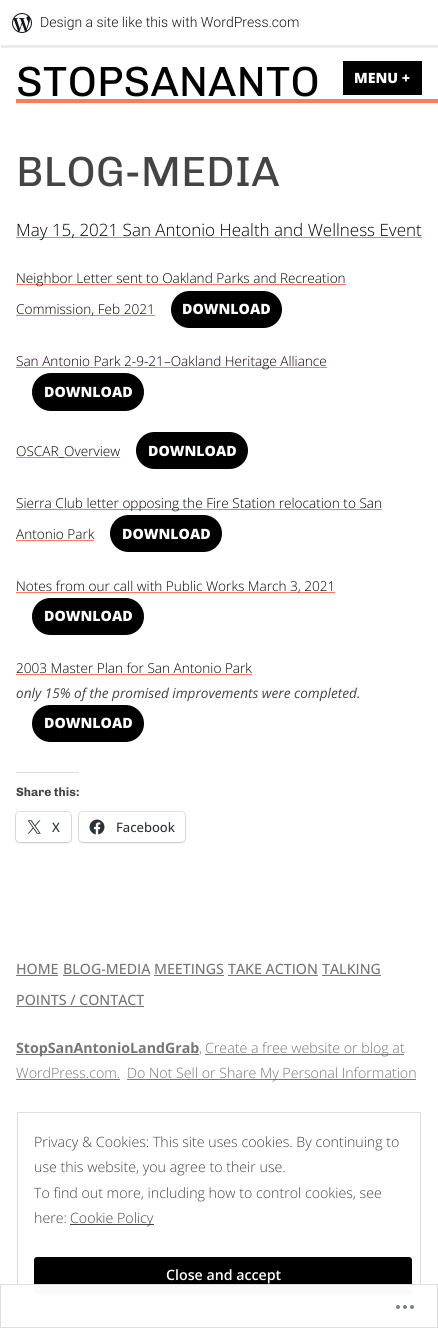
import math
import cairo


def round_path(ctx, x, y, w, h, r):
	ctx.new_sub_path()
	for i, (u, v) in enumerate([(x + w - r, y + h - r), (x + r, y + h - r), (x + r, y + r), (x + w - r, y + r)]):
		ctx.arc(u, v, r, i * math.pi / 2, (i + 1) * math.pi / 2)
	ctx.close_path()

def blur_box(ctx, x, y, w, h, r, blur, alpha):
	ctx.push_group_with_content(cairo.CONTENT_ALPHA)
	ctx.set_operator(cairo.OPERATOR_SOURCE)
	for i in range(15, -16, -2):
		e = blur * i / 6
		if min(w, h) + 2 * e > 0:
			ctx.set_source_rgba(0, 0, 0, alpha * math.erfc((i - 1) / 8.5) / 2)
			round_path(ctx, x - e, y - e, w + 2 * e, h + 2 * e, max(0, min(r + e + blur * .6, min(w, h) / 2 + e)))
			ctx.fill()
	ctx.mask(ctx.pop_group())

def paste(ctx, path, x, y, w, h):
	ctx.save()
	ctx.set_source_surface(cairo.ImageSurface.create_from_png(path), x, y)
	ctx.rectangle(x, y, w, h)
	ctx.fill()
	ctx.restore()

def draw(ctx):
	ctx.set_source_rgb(1, 1, 1)
	ctx.paint()
	ctx.set_source_rgba(0, 0, 0, 0.08)
	ctx.new_path()
	ctx.move_to(1, 45)
	ctx.line_to(1, 48)
	ctx.line_to(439, 48)
	ctx.line_to(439, 3)
	ctx.line_to(438, 3)
	ctx.line_to(438, 45)
	ctx.close_path()
	ctx.fill()
	paste(ctx, 'media/1.png', 12, 13, 20, 20)
	ctx.select_font_face('Roboto Light')
	ctx.set_font_size(14)
	ctx.set_source_rgb(0.09, 0.09, 0.09)
	ctx.move_to(40, 27)
	ctx.show_text('Design a site like this with WordPress.com')
	ctx.select_font_face('Chivo')
	ctx.set_font_size(42.25)
	ctx.set_source_rgb(0, 0, 0)
	ctx.move_to(16, 96)
	ctx.show_text('STOPSANANTO')
	ctx.set_source_rgb(1, 0.478, 0.361)
	ctx.rectangle(16, 99, 422, 4)
	ctx.fill()
	ctx.set_source_rgb(0, 0, 0)
	ctx.rectangle(343, 61, 79, 34)
	ctx.fill()
	ctx.select_font_face('Open Sans ExtraBold')
	ctx.set_font_size(14.2)
	ctx.set_source_rgb(1, 1, 1)
	ctx.move_to(354, 83)
	ctx.show_text('MENU +')
	ctx.select_font_face('Chivo')
	ctx.set_font_size(42.25)
	ctx.set_source_rgb(0.267, 0.267, 0.267)
	ctx.move_to(16, 186)
	ctx.show_text('BLOG-MEDIA')
	ctx.set_source_rgb(1, 0.478, 0.361)
	ctx.rectangle(16, 237, 406, 1)
	ctx.fill()
	ctx.select_font_face('Open Sans Light')
	ctx.set_font_size(17)
	ctx.set_source_rgb(0, 0, 0)
	ctx.move_to(16, 236)
	ctx.show_text('May 15, 2021 San Antonio Health and Wellness Event')
	ctx.set_source_rgb(1, 0.478, 0.361)
	ctx.rectangle(16, 284, 330, 1)
	ctx.fill()
	ctx.set_font_size(13.6)
	ctx.set_source_rgb(0, 0, 0)
	ctx.move_to(16, 283)
	ctx.show_text('Neighbor Letter sent to Oakland Parks and Recreation')
	ctx.set_source_rgb(1, 0.478, 0.361)
	ctx.rectangle(16, 315, 139, 1)
	ctx.fill()
	ctx.set_source_rgb(0, 0, 0)
	ctx.move_to(16, 314)
	ctx.show_text('Commission, Feb 2021')
	round_path(ctx, 171, 291, 111, 37, 18.5)
	ctx.fill()
	ctx.select_font_face('Open Sans ExtraBold')
	ctx.set_font_size(14.2)
	ctx.set_source_rgb(1, 1, 1)
	ctx.move_to(182, 314)
	ctx.show_text('DOWNLOAD')
	ctx.set_source_rgb(1, 0.478, 0.361)
	ctx.rectangle(16, 367, 311, 1)
	ctx.fill()
	ctx.select_font_face('Open Sans Light')
	ctx.set_font_size(13.6)
	ctx.set_source_rgb(0, 0, 0)
	ctx.move_to(16, 366)
	ctx.show_text('San Antonio Park 2-9-21–Oakland Heritage Alliance')
	round_path(ctx, 32, 373, 112, 38, 19)
	ctx.fill()
	ctx.select_font_face('Open Sans ExtraBold')
	ctx.set_font_size(14.2)
	ctx.set_source_rgb(1, 1, 1)
	ctx.move_to(44, 397)
	ctx.show_text('DOWNLOAD')
	ctx.set_source_rgb(1, 0.478, 0.361)
	ctx.rectangle(16, 457, 104, 1)
	ctx.fill()
	ctx.select_font_face('Open Sans Light')
	ctx.set_font_size(13.6)
	ctx.set_source_rgb(0, 0, 0)
	ctx.move_to(16, 456)
	ctx.show_text('OSCAR_Overview')
	round_path(ctx, 136, 432, 112, 37, 18.5)
	ctx.fill()
	ctx.select_font_face('Open Sans ExtraBold')
	ctx.set_font_size(14.2)
	ctx.set_source_rgb(1, 1, 1)
	ctx.move_to(148, 456)
	ctx.show_text('DOWNLOAD')
	ctx.set_source_rgb(1, 0.478, 0.361)
	ctx.rectangle(16, 509, 366, 1)
	ctx.fill()
	ctx.select_font_face('Open Sans Light')
	ctx.set_font_size(13.6)
	ctx.set_source_rgb(0, 0, 0)
	ctx.move_to(16, 508)
	ctx.show_text('Sierra Club letter opposing the Fire Station relocation to San')
	ctx.move_to(16, 539)
	ctx.show_text('Antonio Park')
	ctx.set_source_rgb(1, 0.478, 0.361)
	ctx.rectangle(16, 540, 78, 1)
	ctx.fill()
	ctx.set_source_rgb(0, 0, 0)
	round_path(ctx, 110, 515, 112, 37, 18.5)
	ctx.fill()
	ctx.select_font_face('Open Sans ExtraBold')
	ctx.set_font_size(14.2)
	ctx.set_source_rgb(1, 1, 1)
	ctx.move_to(122, 539)
	ctx.show_text('DOWNLOAD')
	ctx.set_source_rgb(1, 0.478, 0.361)
	ctx.rectangle(16, 592, 319, 1)
	ctx.fill()
	ctx.select_font_face('Open Sans Light')
	ctx.set_font_size(13.6)
	ctx.set_source_rgb(0, 0, 0)
	ctx.move_to(16, 591)
	ctx.show_text('Notes from our call with Public Works March 3, 2021')
	round_path(ctx, 32, 598, 112, 37, 18.5)
	ctx.fill()
	ctx.select_font_face('Open Sans ExtraBold')
	ctx.set_font_size(14.2)
	ctx.set_source_rgb(1, 1, 1)
	ctx.move_to(44, 621)
	ctx.show_text('DOWNLOAD')
	ctx.select_font_face('Open Sans Light')
	ctx.set_font_size(13.6)
	ctx.set_source_rgb(0, 0, 0)
	ctx.move_to(16, 673)
	ctx.show_text('2003 Master Plan for San Antonio Park')
	ctx.set_source_rgb(1, 0.478, 0.361)
	ctx.rectangle(16, 674, 236, 1)
	ctx.fill()
	ctx.select_font_face('Open Sans', cairo.FONT_SLANT_ITALIC)
	ctx.set_source_rgb(0.267, 0.267, 0.267)
	ctx.move_to(16, 698)
	ctx.show_text('only 15% of the promised improvements were completed.')
	ctx.set_source_rgb(0, 0, 0)
	round_path(ctx, 32, 705, 112, 37, 18.5)
	ctx.fill()
	ctx.select_font_face('Open Sans ExtraBold')
	ctx.set_font_size(14.2)
	ctx.set_source_rgb(1, 1, 1)
	ctx.move_to(44, 728)
	ctx.show_text('DOWNLOAD')
	ctx.set_source_rgb(0.863, 0.863, 0.871)
	ctx.rectangle(16, 772, 63, 1)
	ctx.fill()
	ctx.select_font_face('Chivo', cairo.FONT_SLANT_NORMAL, cairo.FONT_WEIGHT_BOLD)
	ctx.set_font_size(12)
	ctx.set_source_rgb(0.267, 0.267, 0.267)
	ctx.move_to(16, 796)
	ctx.show_text('Share this:')
	round_path(ctx, 15.5, 811.5, 56, 31, 4.5)
	ctx.set_source_rgb(0.878, 0.878, 0.878)
	ctx.set_line_width(1)
	ctx.stroke()
	ctx.set_source_rgb(0, 0, 0)
	blur_box(ctx, 16, 813, 55, 30, 4, 1, 0.12)
	ctx.set_source_rgb(1, 1, 1)
	round_path(ctx, 16, 812, 55, 30, 4)
	ctx.fill()
	paste(ctx, 'media/2.png', 27, 820, 14, 14)
	ctx.select_font_face('Open Sans Medium')
	ctx.set_font_size(13)
	ctx.set_source_rgb(0.173, 0.2, 0.22)
	ctx.move_to(52, 832)
	ctx.show_text('X')
	round_path(ctx, 78.5, 811.5, 107, 31, 4.5)
	ctx.set_source_rgb(0.878, 0.878, 0.878)
	ctx.stroke()
	ctx.set_source_rgb(0, 0, 0)
	blur_box(ctx, 79, 813, 106, 30, 4, 1, 0.12)
	ctx.set_source_rgb(1, 1, 1)
	round_path(ctx, 79, 812, 106, 30, 4)
	ctx.fill()
	paste(ctx, 'media/3.png', 89, 819, 16, 16)
	ctx.set_source_rgb(0.173, 0.2, 0.22)
	ctx.move_to(116, 832)
	ctx.show_text('Facebook')
	ctx.set_font_size(14.2)
	ctx.set_source_rgb(0.463, 0.463, 0.463)
	ctx.move_to(16, 974)
	ctx.show_text('HOME')
	ctx.rectangle(16, 975, 42, 1)
	ctx.fill()
	ctx.move_to(63, 974)
	ctx.show_text('BLOG-MEDIA')
	ctx.rectangle(63, 975, 87, 1)
	ctx.fill()
	ctx.move_to(154, 974)
	ctx.show_text('MEETINGS')
	ctx.rectangle(154, 975, 70, 1)
	ctx.fill()
	ctx.move_to(228, 974)
	ctx.show_text('TAKE ACTION')
	ctx.rectangle(228, 975, 90, 1)
	ctx.fill()
	ctx.move_to(322, 974)
	ctx.show_text('TALKING')
	ctx.rectangle(322, 975, 59, 1)
	ctx.fill()
	ctx.move_to(16, 1005)
	ctx.show_text('POINTS / CONTACT')
	ctx.rectangle(16, 1006, 128, 1)
	ctx.fill()
	ctx.rectangle(16, 1054, 183, 1)
	ctx.fill()
	ctx.select_font_face('Open Sans', cairo.FONT_SLANT_NORMAL, cairo.FONT_WEIGHT_BOLD)
	ctx.move_to(16, 1053)
	ctx.show_text('StopSanAntonioLandGrab')
	ctx.select_font_face('Open Sans Light')
	ctx.move_to(199, 1053)
	ctx.show_text(',')
	ctx.rectangle(205, 1054, 199, 1)
	ctx.fill()
	ctx.move_to(205, 1053)
	ctx.show_text('Create a free website or blog at')
	ctx.move_to(16, 1078)
	ctx.show_text('WordPress.com.')
	ctx.rectangle(16, 1079, 104, 1)
	ctx.fill()
	ctx.rectangle(127, 1079, 289, 1)
	ctx.fill()
	ctx.move_to(127, 1078)
	ctx.show_text('Do Not Sell or Share My Personal Information')
	ctx.rectangle(17.5, 1112.5, 403, 198)
	ctx.set_source_rgb(0.867, 0.867, 0.867)
	ctx.stroke()
	ctx.set_source_rgb(0.267, 0.267, 0.267)
	for x, y, s in [
		(34, 1147, 'Privacy & Cookies: This site uses cookies. By continuing to'),
		(34, 1172, 'use this website, you agree to their use.'),
		(34, 1198, 'To find out more, including how to control cookies, see'),
		(34, 1223, 'here:'),
	]:
		ctx.move_to(x, y)
		ctx.show_text(s)
	ctx.rectangle(70, 1224, 84, 1)
	ctx.fill()
	ctx.move_to(70, 1223)
	ctx.show_text('Cookie Policy')
	ctx.set_source_rgb(0, 0, 0)
	round_path(ctx, 34, 1257, 378, 37, 3)
	ctx.fill()
	ctx.select_font_face('Open Sans SemiBold')
	ctx.set_source_rgb(1, 1, 1)
	ctx.move_to(166, 1280)
	ctx.show_text('Close and accept')
	ctx.set_source_rgba(1, 1, 1, 0.98)
	ctx.rectangle(17, 1284, 404, 27)
	ctx.fill()
	ctx.rectangle(0.5, 1284.5, 437, 43)
	ctx.set_source_rgba(0.863, 0.863, 0.871, 0.98)
	ctx.stroke()
	paste(ctx, 'media/4.png', 396, 1305, 18, 4)


surface = cairo.ImageSurface(cairo.FORMAT_RGB24, 438, 1328)
ctx = cairo.Context(surface)
options = cairo.FontOptions()
options.set_hint_metrics(cairo.HINT_METRICS_OFF)
options.set_hint_style(cairo.HINT_STYLE_NONE)
ctx.set_font_options(options)
ctx.set_miter_limit(4)
draw(ctx)
surface.write_to_png('image.png')
